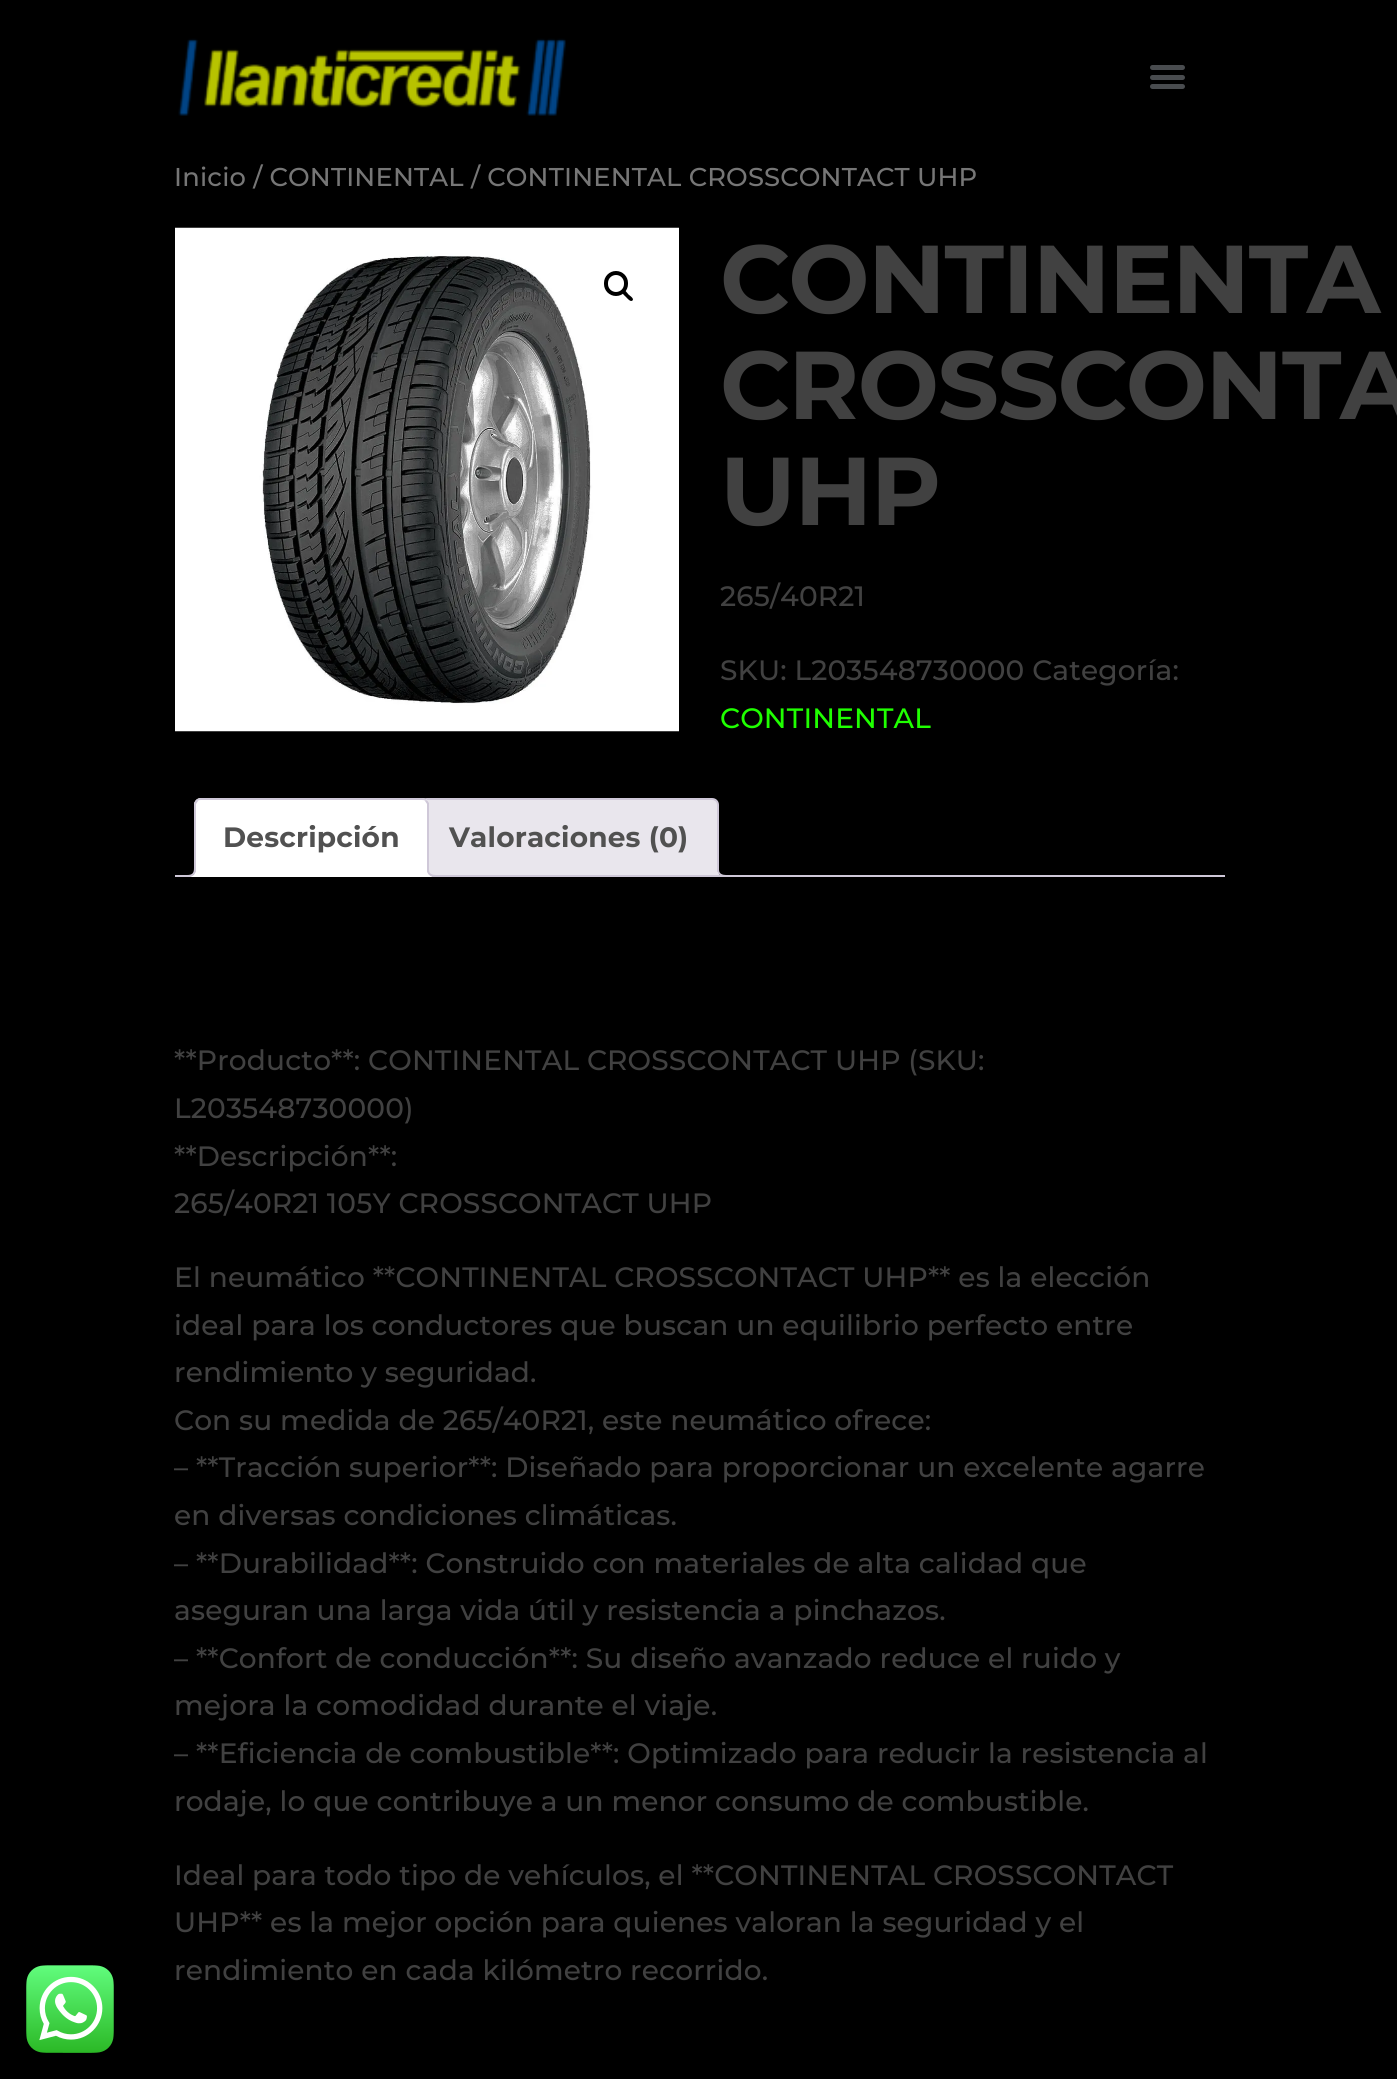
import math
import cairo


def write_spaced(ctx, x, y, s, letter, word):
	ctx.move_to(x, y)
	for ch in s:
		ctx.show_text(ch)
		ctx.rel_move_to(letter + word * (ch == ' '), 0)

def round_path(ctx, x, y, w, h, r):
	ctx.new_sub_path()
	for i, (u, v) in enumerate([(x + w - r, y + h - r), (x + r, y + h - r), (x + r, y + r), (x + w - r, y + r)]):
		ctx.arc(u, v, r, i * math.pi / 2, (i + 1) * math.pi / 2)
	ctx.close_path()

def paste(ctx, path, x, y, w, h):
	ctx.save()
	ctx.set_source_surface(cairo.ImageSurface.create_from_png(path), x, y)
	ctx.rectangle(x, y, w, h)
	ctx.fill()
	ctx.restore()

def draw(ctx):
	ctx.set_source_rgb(0, 0, 0)
	ctx.paint()
	paste(ctx, 'media/1.png', 178, 38, 388, 78)
	ctx.set_source_rgb(0.286, 0.298, 0.31)
	round_path(ctx, 1150, 75, 35, 5, 2.5)
	ctx.fill()
	round_path(ctx, 1150, 65, 35, 5, 2.5)
	ctx.fill()
	round_path(ctx, 1150, 84, 35, 5, 2.5)
	ctx.fill()
	ctx.select_font_face('Montserrat Medium')
	ctx.set_font_size(25.75)
	ctx.set_source_rgb(0.463, 0.463, 0.463)
	write_spaced(ctx, 174, 186, 'Inicio / CONTINENTAL / CONTINENTAL CROSSCONTACT UHP', 0.18, 0)
	paste(ctx, 'media/2.png', 175, 227, 504, 505)
	round_path(ctx, 606, 273, 20, 21, 10)
	ctx.set_source_rgb(0, 0, 0)
	ctx.set_line_width(4)
	ctx.stroke()
	ctx.new_path()
	ctx.move_to(622.5, 290.5)
	ctx.curve_to(624.5, 288.5, 627.5, 293.5, 628.5, 294.5)
	ctx.curve_to(629.5, 295.5, 634.5, 298.5, 632.5, 300.5)
	ctx.curve_to(630.5, 302.5, 627, 298, 626, 297)
	ctx.curve_to(625, 296, 620.5, 292.5, 622.5, 290.5)
	ctx.close_path()
	ctx.fill()
	ctx.select_font_face('Montserrat', cairo.FONT_SLANT_NORMAL, cairo.FONT_WEIGHT_BOLD)
	ctx.set_font_size(96.25)
	ctx.set_source_rgb(0.255, 0.255, 0.255)
	for x, y, s in [
		(720, 313, 'CONTINENTA'),
		(720, 419, 'CROSSCONTA'),
		(720, 525, 'UHP'),
	]:
		write_spaced(ctx, x, y, s, -1.4, 0)
	ctx.select_font_face('Montserrat Medium')
	ctx.set_font_size(28)
	write_spaced(ctx, 720, 606, '265/40R21', 0.18, 0)
	write_spaced(ctx, 720, 680, 'SKU: L203548730000 Categoría:', 0.18, 0)
	ctx.set_source_rgb(0.122, 1, 0)
	write_spaced(ctx, 720, 728, 'CONTINENTAL', 0.18, 0)
	ctx.set_source_rgb(0.914, 0.902, 0.929)
	ctx.new_path()
	ctx.move_to(427, 799)
	ctx.line_to(712, 799)
	ctx.curve_to(715.5, 799, 718, 801.5, 718, 805)
	ctx.line_to(718, 876)
	ctx.line_to(421, 876)
	ctx.line_to(421, 805)
	ctx.curve_to(421, 801.5, 423.5, 799, 427, 799)
	ctx.close_path()
	ctx.fill_preserve()
	ctx.set_source_rgb(0.812, 0.784, 0.847)
	ctx.set_line_width(2)
	ctx.stroke()
	ctx.save()
	ctx.rectangle(175, 798, 1050, 79)
	ctx.clip()
	ctx.set_source_rgb(0.914, 0.902, 0.929)
	ctx.new_path()
	ctx.move_to(714, 872)
	ctx.curve_to(714, 878, 717.5, 880, 723, 880)
	ctx.line_to(723, 876.5)
	ctx.curve_to(720.5, 876, 718.5, 874.5, 718, 872)
	ctx.close_path()
	ctx.fill()
	ctx.restore()
	ctx.set_fill_rule(cairo.FILL_RULE_EVEN_ODD)
	ctx.new_path()
	ctx.move_to(717.5, 868)
	ctx.line_to(726, 868)
	ctx.line_to(726, 877)
	ctx.curve_to(722, 877, 717.5, 875, 717.5, 870)
	ctx.close_path()
	ctx.move_to(719, 868)
	ctx.line_to(726, 868)
	ctx.line_to(726, 875)
	ctx.curve_to(723, 875, 719, 874, 719, 870)
	ctx.close_path()
	ctx.fill()
	ctx.rectangle(175, 875, 1050, 2)
	ctx.fill()
	ctx.set_source_rgb(1, 1, 1)
	ctx.new_path()
	ctx.move_to(201, 798)
	ctx.line_to(422, 798)
	ctx.curve_to(426, 798, 429, 801, 429, 805)
	ctx.line_to(429, 877)
	ctx.line_to(194, 877)
	ctx.line_to(194, 805)
	ctx.curve_to(194, 801, 197, 798, 201, 798)
	ctx.close_path()
	ctx.fill()
	ctx.set_source_rgb(0.812, 0.784, 0.847)
	ctx.set_fill_rule(cairo.FILL_RULE_WINDING)
	ctx.new_path()
	ctx.move_to(201, 798)
	ctx.curve_to(199, 798, 197, 799, 196, 800)
	ctx.line_to(198, 801)
	ctx.curve_to(198, 800, 200, 800, 201, 800)
	ctx.line_to(422, 800)
	ctx.curve_to(423, 800, 425, 800, 425, 801)
	ctx.line_to(427, 800)
	ctx.curve_to(426, 799, 424, 798, 422, 798)
	ctx.close_path()
	ctx.fill()
	ctx.new_path()
	ctx.move_to(427, 800)
	ctx.line_to(429, 803)
	ctx.line_to(429, 877)
	ctx.line_to(427, 875)
	ctx.line_to(427, 804)
	ctx.line_to(425, 801)
	ctx.close_path()
	ctx.fill()
	ctx.set_source_rgb(1, 1, 1)
	ctx.new_path()
	ctx.move_to(429, 877)
	ctx.line_to(427, 875)
	ctx.line_to(196, 875)
	ctx.line_to(194, 877)
	ctx.close_path()
	ctx.fill()
	ctx.set_source_rgb(0.812, 0.784, 0.847)
	ctx.new_path()
	ctx.move_to(194, 877)
	ctx.line_to(194, 803)
	ctx.line_to(196, 800)
	ctx.line_to(198, 801)
	ctx.line_to(196, 804)
	ctx.line_to(196, 875)
	ctx.close_path()
	ctx.fill()
	ctx.select_font_face('Montserrat', cairo.FONT_SLANT_NORMAL, cairo.FONT_WEIGHT_BOLD)
	ctx.set_source_rgb(0.318, 0.318, 0.318)
	write_spaced(ctx, 223, 847, 'Descripción', 0.18, 0)
	ctx.save()
	ctx.rectangle(175, 798, 1050, 79)
	ctx.clip()
	ctx.set_source_rgb(1, 1, 1)
	ctx.new_path()
	ctx.move_to(191, 876.5)
	ctx.line_to(191, 880)
	ctx.curve_to(196.5, 880, 200, 878, 200, 872)
	ctx.line_to(195.5, 872)
	ctx.curve_to(195, 874, 193, 876, 191, 876.5)
	ctx.close_path()
	ctx.fill()
	ctx.restore()
	ctx.set_source_rgb(0.812, 0.784, 0.847)
	ctx.set_fill_rule(cairo.FILL_RULE_EVEN_ODD)
	ctx.new_path()
	ctx.move_to(187, 868)
	ctx.line_to(196, 868)
	ctx.curve_to(196, 874, 193.5, 877, 187, 877)
	ctx.close_path()
	ctx.move_to(187, 868)
	ctx.line_to(194, 868)
	ctx.curve_to(194, 873, 192.5, 875, 187, 875)
	ctx.close_path()
	ctx.fill()
	ctx.save()
	ctx.set_fill_rule(cairo.FILL_RULE_WINDING)
	ctx.rectangle(175, 798, 1050, 79)
	ctx.clip()
	ctx.set_source_rgb(1, 1, 1)
	ctx.new_path()
	ctx.move_to(424, 872)
	ctx.curve_to(424, 877, 427, 880, 432, 880)
	ctx.line_to(432, 876.5)
	ctx.curve_to(430, 876, 428, 874, 427.5, 872)
	ctx.close_path()
	ctx.fill()
	ctx.restore()
	ctx.new_path()
	ctx.move_to(427, 868)
	ctx.line_to(436, 868)
	ctx.line_to(436, 877)
	ctx.curve_to(431.5, 877, 427, 875, 427, 870)
	ctx.close_path()
	ctx.move_to(429, 868)
	ctx.line_to(436, 868)
	ctx.line_to(436, 875)
	ctx.curve_to(432.5, 875, 429, 874, 429, 870)
	ctx.close_path()
	ctx.fill()
	ctx.set_source_rgb(0.318, 0.318, 0.318)
	write_spaced(ctx, 449, 847, 'Valoraciones (0)', 0.18, 0)
	ctx.select_font_face('Montserrat Medium')
	ctx.set_source_rgb(0.255, 0.255, 0.255)
	for x, y, s in [
		(174, 1070, '**Producto**: CONTINENTAL CROSSCONTACT UHP (SKU:'),
		(174, 1118, 'L203548730000)'),
		(174, 1166, '**Descripción**:'),
		(174, 1213, '265/40R21 105Y CROSSCONTACT UHP'),
		(174, 1287, 'El neumático **CONTINENTAL CROSSCONTACT UHP** es la elección'),
		(174, 1335, 'ideal para los conductores que buscan un equilibrio perfecto entre'),
		(174, 1382, 'rendimiento y seguridad.'),
		(174, 1430, 'Con su medida de 265/40R21, este neumático ofrece:'),
		(174, 1477, '– **Tracción superior**: Diseñado para proporcionar un excelente agarre'),
		(174, 1525, 'en diversas condiciones climáticas.'),
		(174, 1573, '– **Durabilidad**: Construido con materiales de alta calidad que'),
		(174, 1620, 'aseguran una larga vida útil y resistencia a pinchazos.'),
		(174, 1668, '– **Confort de conducción**: Su diseño avanzado reduce el ruido y'),
		(174, 1715, 'mejora la comodidad durante el viaje.'),
		(174, 1763, '– **Eficiencia de combustible**: Optimizado para reducir la resistencia al'),
		(174, 1811, 'rodaje, lo que contribuye a un menor consumo de combustible.'),
		(174, 1885, 'Ideal para todo tipo de vehículos, el **CONTINENTAL CROSSCONTACT'),
		(174, 1932, 'UHP** es la mejor opción para quienes valoran la seguridad y el'),
		(174, 1980, 'rendimiento en cada kilómetro recorrido.'),
	]:
		write_spaced(ctx, x, y, s, 0.18, 0)
	paste(ctx, 'media/3.png', 26, 1965, 88, 88)


surface = cairo.ImageSurface(cairo.FORMAT_RGB24, 1397, 2079)
ctx = cairo.Context(surface)
options = cairo.FontOptions()
options.set_hint_metrics(cairo.HINT_METRICS_OFF)
options.set_hint_style(cairo.HINT_STYLE_NONE)
ctx.set_font_options(options)
ctx.set_miter_limit(4)
draw(ctx)
surface.write_to_png('image.png')
